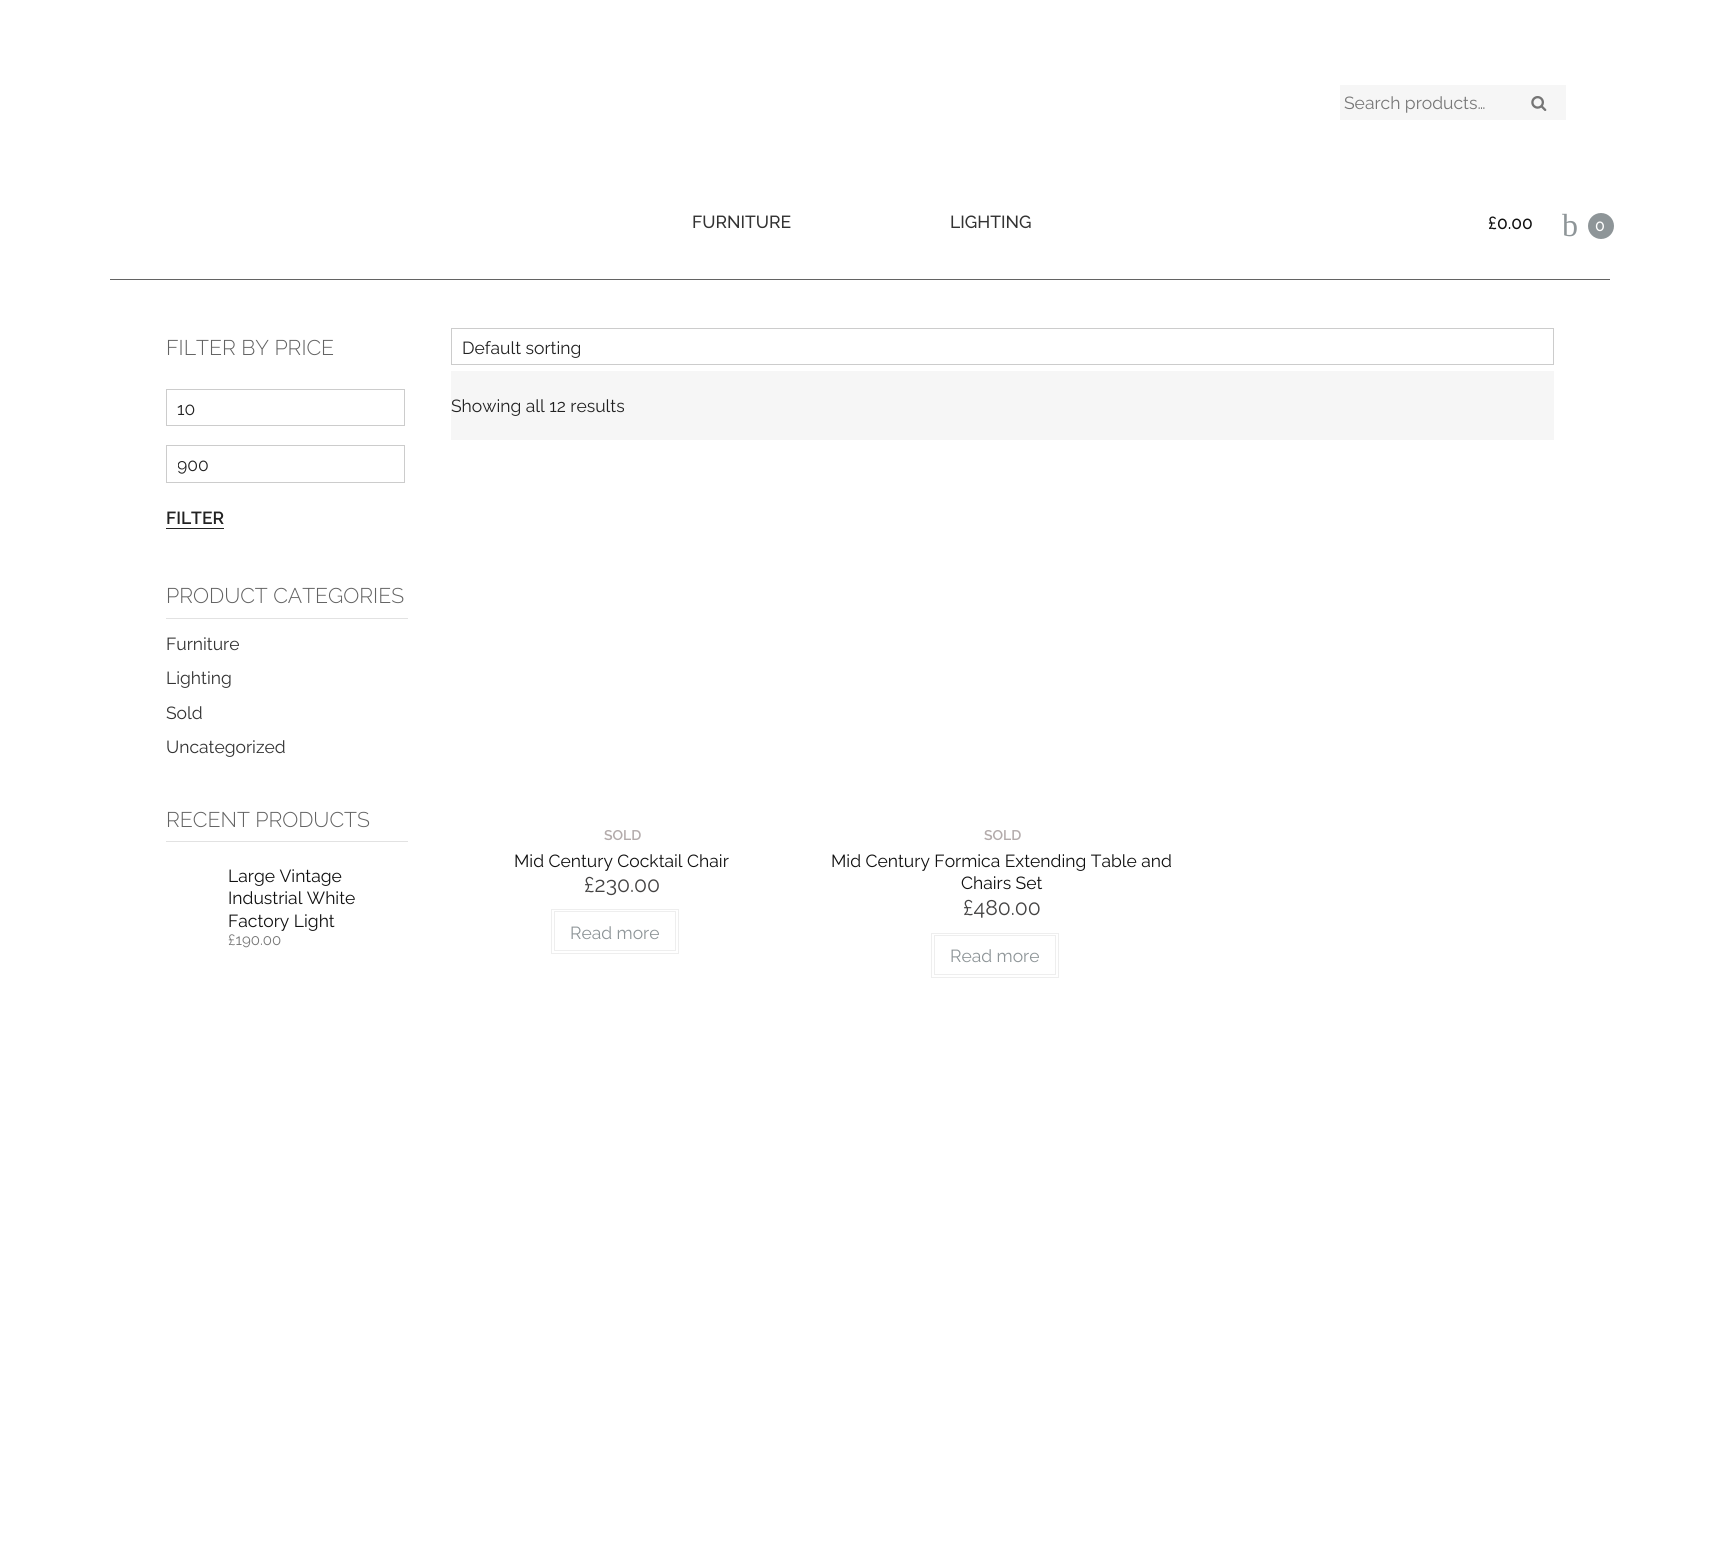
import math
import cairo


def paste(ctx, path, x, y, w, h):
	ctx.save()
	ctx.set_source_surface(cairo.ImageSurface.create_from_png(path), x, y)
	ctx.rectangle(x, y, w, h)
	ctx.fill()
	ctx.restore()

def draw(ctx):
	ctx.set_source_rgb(1, 1, 1)
	ctx.paint()
	ctx.set_source_rgb(0.961, 0.961, 0.961)
	ctx.rectangle(1340, 85, 226, 35)
	ctx.fill()
	ctx.select_font_face('Raleway')
	ctx.set_font_size(17.5)
	ctx.set_source_rgb(0.467, 0.467, 0.467)
	ctx.move_to(1344, 109)
	ctx.show_text('Search products…')
	paste(ctx, 'media/1.png', 1531, 96, 16, 15)
	ctx.set_source_rgb(0.388, 0.388, 0.388)
	ctx.rectangle(110, 279, 1500, 1)
	ctx.fill()
	ctx.select_font_face('Raleway Medium')
	ctx.set_source_rgb(0.2, 0.2, 0.2)
	ctx.move_to(692, 228)
	ctx.show_text('FURNITURE')
	ctx.move_to(950, 228)
	ctx.show_text('LIGHTING')
	ctx.set_source_rgb(0.067, 0.067, 0.067)
	ctx.move_to(1488, 229)
	ctx.show_text('£0.00')
	ctx.select_font_face('Liberation Serif')
	ctx.set_font_size(32)
	ctx.set_source_rgb(0.557, 0.584, 0.596)
	ctx.move_to(1562, 236)
	ctx.show_text('b')
	ctx.new_path()
	ctx.arc(1601, 226, 13, 0, 2 * math.pi)
	ctx.fill()
	ctx.select_font_face('Raleway Medium')
	ctx.set_font_size(16)
	ctx.set_source_rgb(1, 1, 1)
	ctx.move_to(1595, 231)
	ctx.show_text('0')
	ctx.select_font_face('Raleway Light')
	ctx.set_font_size(21.25)
	ctx.set_source_rgb(0.388, 0.388, 0.388)
	ctx.move_to(166, 355)
	ctx.show_text('FILTER BY PRICE')
	ctx.rectangle(166.5, 389.5, 238, 36)
	ctx.set_source_rgb(0.8, 0.8, 0.8)
	ctx.set_line_width(1)
	ctx.stroke()
	ctx.select_font_face('Raleway')
	ctx.set_font_size(17.5)
	ctx.set_source_rgb(0.133, 0.133, 0.133)
	ctx.move_to(177, 415)
	ctx.show_text('10')
	ctx.rectangle(166.5, 445.5, 238, 37)
	ctx.set_source_rgb(0.8, 0.8, 0.8)
	ctx.stroke()
	ctx.save()
	ctx.rectangle(178, 453, 216, 25)
	ctx.clip()
	ctx.set_source_rgb(0.133, 0.133, 0.133)
	ctx.move_to(177, 471)
	ctx.show_text('900')
	ctx.restore()
	ctx.set_source_rgb(0.133, 0.133, 0.133)
	ctx.rectangle(166, 528, 58, 1)
	ctx.fill()
	ctx.select_font_face('Raleway SemiBold')
	ctx.move_to(166, 524)
	ctx.show_text('FILTER')
	ctx.set_source_rgb(0.886, 0.886, 0.886)
	ctx.rectangle(166, 618, 242, 1)
	ctx.fill()
	ctx.select_font_face('Raleway Light')
	ctx.set_font_size(21.25)
	ctx.set_source_rgb(0.388, 0.388, 0.388)
	ctx.move_to(166, 603)
	ctx.show_text('PRODUCT CATEGORIES')
	ctx.select_font_face('Raleway')
	ctx.set_font_size(17.5)
	ctx.set_source_rgb(0.2, 0.2, 0.2)
	for x, y, s in [
		(166, 650, 'Furniture'),
		(166, 684, 'Lighting'),
		(166, 719, 'Sold'),
		(166, 753, 'Uncategorized'),
	]:
		ctx.move_to(x, y)
		ctx.show_text(s)
	ctx.set_source_rgb(0.886, 0.886, 0.886)
	ctx.rectangle(166, 841, 242, 1)
	ctx.fill()
	ctx.select_font_face('Raleway Light')
	ctx.set_font_size(21.25)
	ctx.set_source_rgb(0.388, 0.388, 0.388)
	ctx.move_to(166, 827)
	ctx.show_text('RECENT PRODUCTS')
	ctx.select_font_face('Raleway')
	ctx.set_font_size(17.5)
	ctx.set_source_rgb(0.067, 0.067, 0.067)
	for x, y, s in [
		(228, 882, 'Large Vintage'),
		(228, 904, 'Industrial White'),
		(228, 927, 'Factory Light'),
	]:
		ctx.move_to(x, y)
		ctx.show_text(s)
	ctx.set_font_size(15)
	ctx.set_source_rgb(0.467, 0.467, 0.467)
	ctx.move_to(228, 945)
	ctx.show_text('£190.00')
	ctx.rectangle(451.5, 328.5, 1102, 36)
	ctx.set_source_rgb(0.8, 0.8, 0.8)
	ctx.stroke()
	ctx.set_font_size(17.5)
	ctx.set_source_rgb(0.133, 0.133, 0.133)
	ctx.move_to(462, 354)
	ctx.show_text('Default sorting')
	ctx.set_source_rgb(0.961, 0.961, 0.961)
	ctx.rectangle(451, 371, 1103, 69)
	ctx.fill()
	ctx.set_source_rgb(0.133, 0.133, 0.133)
	ctx.move_to(451, 412)
	ctx.show_text('Showing all 12 results')
	ctx.select_font_face('Raleway SemiBold')
	ctx.set_font_size(14)
	ctx.set_source_rgb(0.702, 0.671, 0.671)
	ctx.move_to(604, 840)
	ctx.show_text('SOLD')
	ctx.select_font_face('Raleway')
	ctx.set_font_size(17.5)
	ctx.set_source_rgb(0.067, 0.067, 0.067)
	ctx.move_to(514, 867)
	ctx.show_text('Mid Century Cocktail Chair')
	ctx.set_font_size(21.25)
	ctx.set_source_rgb(0.267, 0.263, 0.263)
	ctx.move_to(584, 892)
	ctx.show_text('£230.00')
	ctx.rectangle(551.5, 909.5, 127, 44)
	ctx.set_source_rgb(0.933, 0.933, 0.933)
	ctx.stroke()
	ctx.rectangle(554.5, 911.5, 121, 39)
	ctx.stroke()
	ctx.set_font_size(17.5)
	ctx.set_source_rgb(0.557, 0.584, 0.596)
	ctx.move_to(570, 939)
	ctx.show_text('Read more')
	ctx.select_font_face('Raleway SemiBold')
	ctx.set_font_size(14)
	ctx.set_source_rgb(0.702, 0.671, 0.671)
	ctx.move_to(984, 840)
	ctx.show_text('SOLD')
	ctx.select_font_face('Raleway')
	ctx.set_font_size(17.5)
	ctx.set_source_rgb(0.067, 0.067, 0.067)
	ctx.move_to(831, 867)
	ctx.show_text('Mid Century Formica Extending Table and')
	ctx.move_to(961, 889)
	ctx.show_text('Chairs Set')
	ctx.set_font_size(21.25)
	ctx.set_source_rgb(0.267, 0.263, 0.263)
	ctx.move_to(963, 915)
	ctx.show_text('£480.00')
	ctx.rectangle(931.5, 933.5, 127, 44)
	ctx.set_source_rgb(0.933, 0.933, 0.933)
	ctx.stroke()
	ctx.rectangle(934.5, 935.5, 121, 39)
	ctx.stroke()
	ctx.set_font_size(17.5)
	ctx.set_source_rgb(0.557, 0.584, 0.596)
	ctx.move_to(950, 962)
	ctx.show_text('Read more')


surface = cairo.ImageSurface(cairo.FORMAT_RGB24, 1718, 1565)
ctx = cairo.Context(surface)
options = cairo.FontOptions()
options.set_hint_metrics(cairo.HINT_METRICS_OFF)
options.set_hint_style(cairo.HINT_STYLE_NONE)
ctx.set_font_options(options)
ctx.set_miter_limit(4)
draw(ctx)
surface.write_to_png('image.png')
